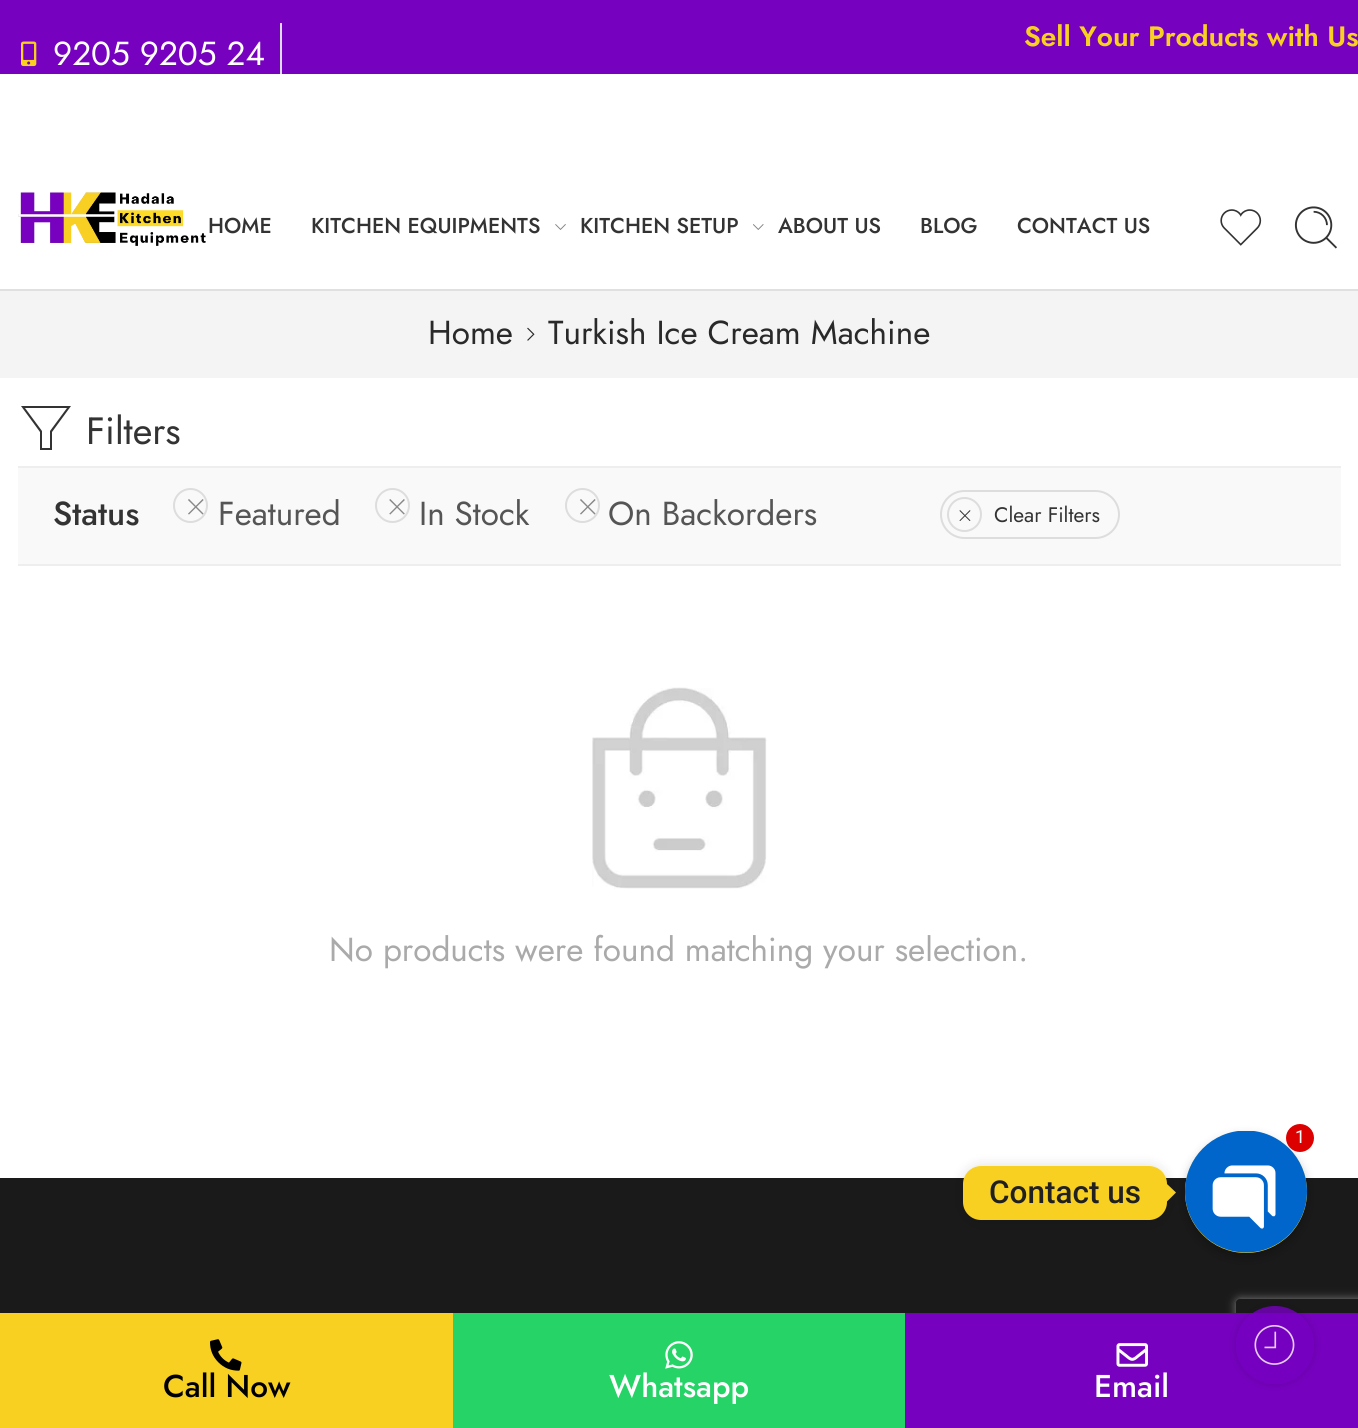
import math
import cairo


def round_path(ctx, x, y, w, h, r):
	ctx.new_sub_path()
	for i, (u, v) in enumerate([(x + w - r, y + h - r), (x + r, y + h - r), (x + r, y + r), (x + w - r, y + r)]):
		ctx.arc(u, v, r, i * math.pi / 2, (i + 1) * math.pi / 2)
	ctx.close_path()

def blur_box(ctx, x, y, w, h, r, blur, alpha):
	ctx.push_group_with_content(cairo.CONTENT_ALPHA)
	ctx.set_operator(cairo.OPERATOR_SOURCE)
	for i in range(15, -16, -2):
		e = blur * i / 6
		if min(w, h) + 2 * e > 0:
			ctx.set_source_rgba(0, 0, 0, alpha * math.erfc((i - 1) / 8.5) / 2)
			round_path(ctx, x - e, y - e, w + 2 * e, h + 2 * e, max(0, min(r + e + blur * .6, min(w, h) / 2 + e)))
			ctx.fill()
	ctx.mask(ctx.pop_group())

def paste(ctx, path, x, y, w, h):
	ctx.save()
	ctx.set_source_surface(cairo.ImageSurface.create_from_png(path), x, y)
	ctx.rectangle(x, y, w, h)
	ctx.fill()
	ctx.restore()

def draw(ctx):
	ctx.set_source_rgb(1, 1, 1)
	ctx.paint()
	ctx.set_source_rgb(0.463, 0.004, 0.749)
	ctx.rectangle(0, 0, 1358, 74)
	ctx.fill()
	ctx.select_font_face('Jost SemiBold')
	ctx.set_font_size(28)
	ctx.set_source_rgb(0.969, 0.816, 0.133)
	ctx.move_to(1024, 46)
	ctx.show_text('Sell Your Products with Us')
	paste(ctx, 'media/1.png', 21, 41, 16, 26)
	ctx.select_font_face('Jost')
	ctx.set_font_size(33.25)
	ctx.set_source_rgb(1, 1, 1)
	ctx.move_to(53, 65)
	ctx.show_text('9205 9205 24')
	ctx.set_source_rgb(0.867, 0.867, 0.867)
	ctx.rectangle(280, 23, 2, 51)
	ctx.fill()
	ctx.set_source_rgb(0.878, 0.878, 0.878)
	ctx.rectangle(0, 289, 1358, 2)
	ctx.fill()
	paste(ctx, 'media/2.png', 18, 192, 188, 54)
	ctx.select_font_face('Jost Medium')
	ctx.set_font_size(21.5)
	ctx.set_source_rgb(0.2, 0.2, 0.2)
	ctx.move_to(208, 233)
	ctx.show_text('HOME')
	ctx.move_to(311, 233)
	ctx.show_text('KITCHEN EQUIPMENTS')
	paste(ctx, 'media/3.png', 555, 224, 11, 6)
	ctx.move_to(580, 233)
	ctx.show_text('KITCHEN SETUP')
	paste(ctx, 'media/4.png', 753, 224, 11, 6)
	for x, y, s in [
		(778, 233, 'ABOUT US'),
		(920, 233, 'BLOG'),
		(1017, 233, 'CONTACT US'),
	]:
		ctx.move_to(x, y)
		ctx.show_text(s)
	paste(ctx, 'media/5.png', 1220, 209, 42, 37)
	paste(ctx, 'media/6.png', 1294, 206, 43, 43)
	ctx.set_source_rgb(0.957, 0.957, 0.957)
	ctx.rectangle(0, 291, 1358, 87)
	ctx.fill()
	ctx.select_font_face('Jost')
	ctx.set_font_size(33.25)
	ctx.set_source_rgb(0.161, 0.161, 0.161)
	ctx.move_to(428, 344)
	ctx.show_text('Home')
	paste(ctx, 'media/7.png', 527, 327, 8, 14)
	ctx.move_to(548, 344)
	ctx.show_text('Turkish Ice Cream Machine')
	ctx.set_source_rgb(0.2, 0.2, 0.2)
	ctx.new_path()
	ctx.move_to(52, 450)
	ctx.line_to(40, 450)
	ctx.line_to(40, 432)
	ctx.line_to(21, 406)
	ctx.line_to(71, 406)
	ctx.line_to(52, 432)
	ctx.close_path()
	ctx.move_to(42, 448)
	ctx.line_to(50, 448)
	ctx.line_to(50, 431)
	ctx.line_to(67, 408)
	ctx.line_to(25, 408)
	ctx.line_to(42, 431)
	ctx.close_path()
	ctx.fill()
	ctx.set_font_size(38)
	ctx.move_to(86, 444)
	ctx.show_text('Filters')
	ctx.set_source_rgb(0.976, 0.976, 0.976)
	ctx.rectangle(18, 468, 1323, 96)
	ctx.fill()
	ctx.set_source_rgb(0.933, 0.933, 0.933)
	ctx.rectangle(18, 466, 1323, 2)
	ctx.rectangle(18, 564, 1323, 2)
	ctx.fill()
	ctx.select_font_face('Jost Medium')
	ctx.set_font_size(33.25)
	ctx.set_source_rgb(0.2, 0.2, 0.2)
	ctx.move_to(53, 525)
	ctx.show_text('Status')
	ctx.new_path()
	ctx.arc(190.5, 505.5, 16.5, 0, 2 * math.pi)
	ctx.set_source_rgb(0.867, 0.867, 0.867)
	ctx.stroke()
	paste(ctx, 'media/8.png', 188, 499, 16, 16)
	ctx.select_font_face('Jost')
	ctx.set_source_rgb(0.333, 0.333, 0.333)
	ctx.move_to(218, 525)
	ctx.show_text('Featured')
	ctx.new_path()
	ctx.arc(392.5, 505.5, 16.5, 0, 2 * math.pi)
	ctx.set_source_rgb(0.867, 0.867, 0.867)
	ctx.stroke()
	paste(ctx, 'media/9.png', 389, 499, 16, 16)
	ctx.set_source_rgb(0.333, 0.333, 0.333)
	ctx.move_to(419, 525)
	ctx.show_text('In Stock')
	ctx.new_path()
	ctx.arc(582.5, 505.5, 16.5, 0, 2 * math.pi)
	ctx.set_source_rgb(0.867, 0.867, 0.867)
	ctx.stroke()
	paste(ctx, 'media/8.png', 580, 499, 16, 16)
	ctx.set_source_rgb(0.333, 0.333, 0.333)
	ctx.move_to(608, 525)
	ctx.show_text('On Backorders')
	round_path(ctx, 941, 491, 178, 47, 23.5)
	ctx.set_source_rgb(0.867, 0.867, 0.867)
	ctx.stroke()
	ctx.arc(964.5, 514.5, 16.5, 0, 2 * math.pi)
	ctx.stroke()
	paste(ctx, 'media/10.png', 959, 510, 12, 11)
	ctx.set_font_size(21)
	ctx.set_source_rgb(0.2, 0.2, 0.2)
	ctx.move_to(994, 522)
	ctx.show_text('Clear Filters')
	paste(ctx, 'media/11.png', 592, 687, 175, 202)
	ctx.set_font_size(33.25)
	ctx.set_source_rgb(0.667, 0.667, 0.667)
	ctx.move_to(329, 961)
	ctx.show_text('No products were found matching your selection.')
	ctx.set_source_rgb(0.102, 0.102, 0.102)
	ctx.rectangle(0, 1178, 1358, 135)
	ctx.fill()
	ctx.set_source_rgb(0.969, 0.816, 0.133)
	ctx.rectangle(0, 1313, 453, 115)
	ctx.fill()
	paste(ctx, 'media/12.png', 210, 1339, 32, 32)
	ctx.select_font_face('Jost Medium')
	ctx.set_font_size(31.5)
	ctx.set_source_rgb(0, 0, 0)
	ctx.move_to(163, 1397)
	ctx.show_text('Call Now')
	ctx.set_source_rgb(0.145, 0.827, 0.4)
	ctx.rectangle(453, 1313, 452, 115)
	ctx.fill()
	paste(ctx, 'media/13.png', 665, 1341, 28, 28)
	ctx.set_source_rgb(1, 1, 1)
	ctx.move_to(609, 1397)
	ctx.show_text('Whatsapp')
	ctx.save()
	ctx.set_fill_rule(cairo.FILL_RULE_EVEN_ODD)
	ctx.new_path()
	ctx.move_to(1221, 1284)
	ctx.line_to(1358, 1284)
	ctx.line_to(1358, 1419)
	ctx.line_to(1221, 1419)
	ctx.close_path()
	ctx.move_to(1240, 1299)
	ctx.line_to(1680, 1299)
	ctx.curve_to(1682, 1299, 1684, 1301, 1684, 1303)
	ctx.line_to(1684, 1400)
	ctx.curve_to(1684, 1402, 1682, 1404, 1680, 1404)
	ctx.line_to(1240, 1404)
	ctx.curve_to(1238, 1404, 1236, 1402, 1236, 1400)
	ctx.line_to(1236, 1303)
	ctx.curve_to(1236, 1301, 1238, 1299, 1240, 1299)
	ctx.close_path()
	ctx.clip()
	ctx.set_source_rgb(0.502, 0.502, 0.502)
	blur_box(ctx, 1236, 1299, 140, 105, 4, 4.5, 1)
	ctx.restore()
	ctx.set_source_rgb(0.463, 0.004, 0.749)
	ctx.rectangle(905, 1313, 453, 115)
	ctx.fill()
	paste(ctx, 'media/14.png', 1116, 1343, 32, 24)
	ctx.set_source_rgb(1, 1, 1)
	ctx.move_to(1094, 1397)
	ctx.show_text('Email')
	ctx.save()
	ctx.set_fill_rule(cairo.FILL_RULE_EVEN_ODD)
	ctx.new_path()
	ctx.move_to(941, 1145)
	ctx.line_to(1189, 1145)
	ctx.line_to(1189, 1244)
	ctx.line_to(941, 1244)
	ctx.close_path()
	ctx.move_to(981, 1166)
	ctx.line_to(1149, 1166)
	ctx.curve_to(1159, 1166, 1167, 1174, 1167, 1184)
	ctx.line_to(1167, 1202)
	ctx.curve_to(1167, 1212, 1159, 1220, 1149, 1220)
	ctx.line_to(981, 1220)
	ctx.curve_to(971, 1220, 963, 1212, 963, 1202)
	ctx.line_to(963, 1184)
	ctx.curve_to(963, 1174, 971, 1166, 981, 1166)
	ctx.close_path()
	ctx.clip()
	ctx.set_source_rgb(0, 0, 0)
	blur_box(ctx, 963, 1167, 204, 55, 18, 7, 0.15)
	ctx.restore()
	ctx.set_source_rgb(0.969, 0.816, 0.133)
	ctx.new_path()
	ctx.move_to(1167, 1201.5)
	ctx.line_to(1167, 1184)
	ctx.line_to(1176, 1192.5)
	ctx.close_path()
	ctx.fill()
	ctx.set_source_rgb(0, 0, 0)
	blur_box(ctx, 1185, 1136, 122, 122, 61, 5, 0.25)
	ctx.set_source_rgb(0.969, 0.816, 0.133)
	ctx.arc(1246, 1192, 61, 0, 2 * math.pi)
	ctx.fill()
	paste(ctx, 'media/15.png', 1185, 1131, 122, 122)
	ctx.set_source_rgb(0.867, 0, 0)
	ctx.arc(1300, 1138, 14, 0, 2 * math.pi)
	ctx.fill()
	ctx.select_font_face('Roboto')
	ctx.set_font_size(18)
	ctx.set_source_rgb(1, 1, 1)
	ctx.move_to(1295, 1143)
	ctx.show_text('1')
	ctx.set_source_rgb(0.969, 0.816, 0.133)
	round_path(ctx, 963, 1166, 204, 54, 18)
	ctx.fill()
	ctx.select_font_face('Roboto Medium')
	ctx.set_font_size(31.5)
	ctx.set_source_rgb(0.125, 0.125, 0.125)
	ctx.move_to(989, 1203)
	ctx.show_text('Contact us')
	ctx.save()
	ctx.set_fill_rule(cairo.FILL_RULE_EVEN_ODD)
	ctx.new_path()
	ctx.move_to(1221, 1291)
	ctx.line_to(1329, 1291)
	ctx.line_to(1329, 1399)
	ctx.line_to(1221, 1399)
	ctx.close_path()
	ctx.move_to(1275, 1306)
	ctx.curve_to(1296.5, 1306, 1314, 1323.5, 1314, 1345)
	ctx.curve_to(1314, 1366.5, 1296.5, 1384, 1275, 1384)
	ctx.curve_to(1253.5, 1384, 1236, 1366.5, 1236, 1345)
	ctx.curve_to(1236, 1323.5, 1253.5, 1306, 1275, 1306)
	ctx.close_path()
	ctx.clip()
	ctx.set_source_rgb(0, 0, 0)
	blur_box(ctx, 1236, 1306, 78, 78, 39, 4.5, 0.14)
	ctx.restore()
	ctx.set_source_rgba(0.463, 0.004, 0.749, 0.8)
	ctx.arc(1275, 1345, 39, 0, 2 * math.pi)
	ctx.fill()
	paste(ctx, 'media/16.png', 1254, 1325, 41, 40)


surface = cairo.ImageSurface(cairo.FORMAT_RGB24, 1358, 1428)
ctx = cairo.Context(surface)
options = cairo.FontOptions()
options.set_hint_metrics(cairo.HINT_METRICS_OFF)
options.set_hint_style(cairo.HINT_STYLE_NONE)
ctx.set_font_options(options)
ctx.set_miter_limit(4)
draw(ctx)
surface.write_to_png('image.png')
